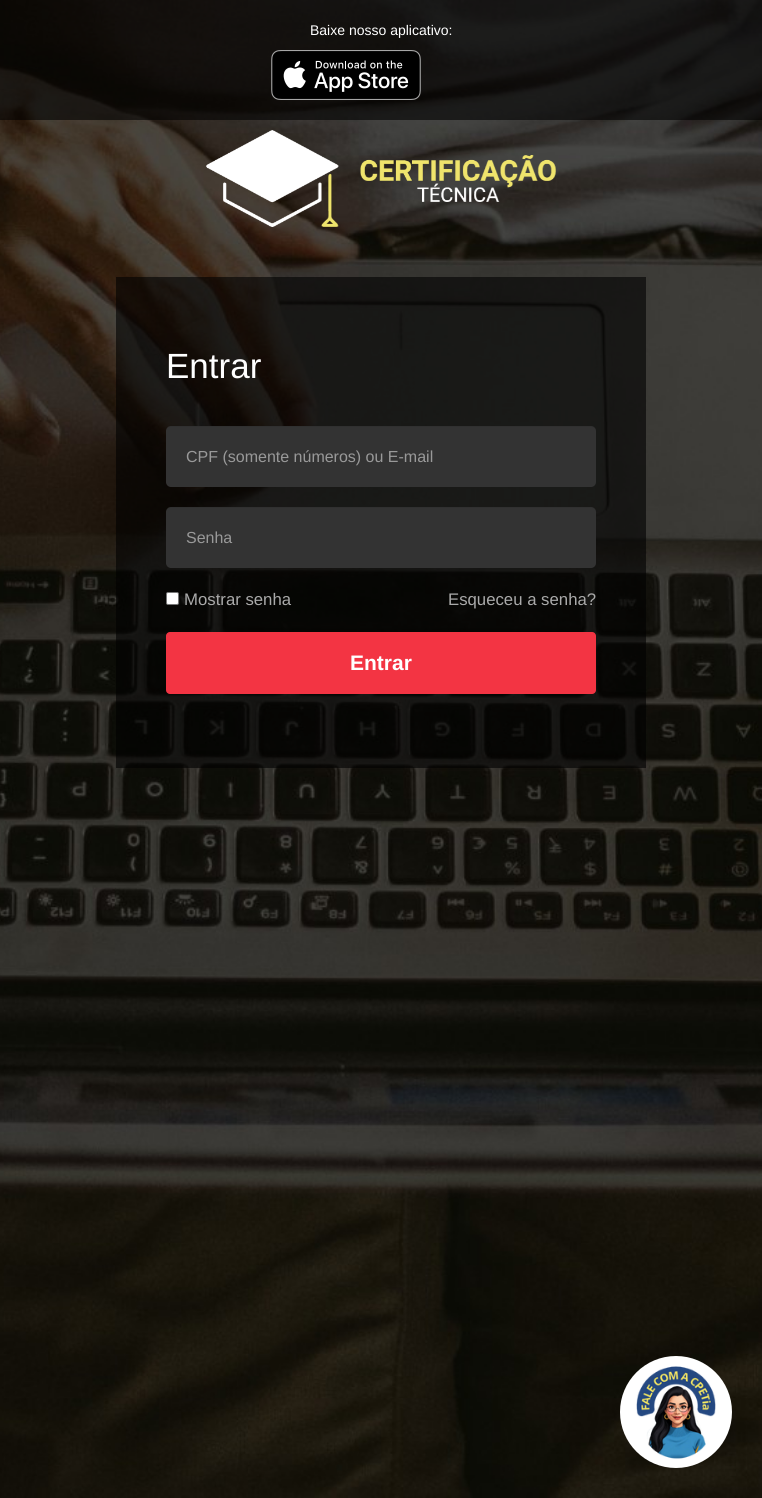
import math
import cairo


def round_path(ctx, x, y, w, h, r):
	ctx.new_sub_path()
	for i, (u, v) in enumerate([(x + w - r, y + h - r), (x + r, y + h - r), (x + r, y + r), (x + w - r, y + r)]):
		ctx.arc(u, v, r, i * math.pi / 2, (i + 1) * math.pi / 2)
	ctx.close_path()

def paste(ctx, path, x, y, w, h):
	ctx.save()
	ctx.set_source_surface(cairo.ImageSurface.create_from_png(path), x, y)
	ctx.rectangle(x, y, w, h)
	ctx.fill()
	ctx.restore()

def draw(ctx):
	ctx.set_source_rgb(1, 1, 1)
	ctx.paint()
	paste(ctx, 'media/1.png', 0, 0, 762, 1498)
	ctx.set_source_rgba(0, 0, 0, 0.6)
	ctx.rectangle(0, 0, 762, 120)
	ctx.fill()
	ctx.select_font_face('Liberation Sans')
	ctx.set_font_size(14)
	ctx.set_source_rgb(1, 1, 1)
	ctx.move_to(310, 35)
	ctx.show_text('Baixe nosso aplicativo:')
	paste(ctx, 'media/2.png', 271, 50, 150, 50)
	paste(ctx, 'media/3.png', 206, 130, 350, 97)
	ctx.set_source_rgba(0, 0, 0, 0.6)
	ctx.rectangle(116, 277, 530, 491)
	ctx.fill()
	ctx.set_font_size(35)
	ctx.set_source_rgb(1, 1, 1)
	ctx.move_to(166, 378)
	ctx.show_text('Entrar')
	ctx.set_source_rgb(0.2, 0.2, 0.2)
	round_path(ctx, 166, 426, 430, 61, 5)
	ctx.fill()
	ctx.set_source_rgba(0, 0, 0, 0.07)
	ctx.new_path()
	ctx.move_to(171, 427)
	ctx.line_to(591, 427)
	ctx.curve_to(594, 427, 596, 429, 596, 432)
	ctx.curve_to(596, 429, 594, 426, 591, 426)
	ctx.line_to(171, 426)
	ctx.curve_to(168, 426, 166, 429, 166, 432)
	ctx.curve_to(166, 429, 168, 427, 171, 427)
	ctx.close_path()
	ctx.fill()
	ctx.set_font_size(16)
	ctx.set_source_rgb(0.6, 0.6, 0.6)
	ctx.move_to(186, 462)
	ctx.show_text('CPF (somente números) ou E-mail')
	ctx.set_source_rgb(0.2, 0.2, 0.2)
	round_path(ctx, 166, 507, 430, 61, 5)
	ctx.fill()
	ctx.set_source_rgba(0, 0, 0, 0.07)
	ctx.new_path()
	ctx.move_to(171, 508)
	ctx.line_to(591, 508)
	ctx.curve_to(594, 508, 596, 510, 596, 513)
	ctx.curve_to(596, 510, 594, 507, 591, 507)
	ctx.line_to(171, 507)
	ctx.curve_to(168, 507, 166, 510, 166, 513)
	ctx.curve_to(166, 510, 168, 508, 171, 508)
	ctx.close_path()
	ctx.fill()
	ctx.set_source_rgb(0.6, 0.6, 0.6)
	ctx.move_to(186, 543)
	ctx.show_text('Senha')
	ctx.set_source_rgb(1, 1, 1)
	round_path(ctx, 166.5, 592.5, 12, 12, 1.5)
	ctx.fill_preserve()
	ctx.set_source_rgb(0.463, 0.463, 0.463)
	ctx.set_line_width(1)
	ctx.stroke()
	ctx.set_font_size(16.75)
	ctx.set_source_rgb(0.667, 0.667, 0.667)
	ctx.move_to(184, 605)
	ctx.show_text('Mostrar senha')
	ctx.move_to(448, 605)
	ctx.show_text('Esqueceu a senha?')
	ctx.set_source_rgb(0.953, 0.204, 0.263)
	round_path(ctx, 166, 632, 430, 62, 4)
	ctx.fill()
	ctx.select_font_face('Liberation Sans', cairo.FONT_SLANT_NORMAL, cairo.FONT_WEIGHT_BOLD)
	ctx.set_font_size(21)
	ctx.set_source_rgb(1, 1, 1)
	ctx.move_to(350, 670)
	ctx.show_text('Entrar')
	ctx.new_path()
	ctx.arc(676, 1412, 56, 0, 2 * math.pi)
	ctx.fill()
	paste(ctx, 'media/4.png', 636, 1366, 80, 93)


surface = cairo.ImageSurface(cairo.FORMAT_RGB24, 762, 1498)
ctx = cairo.Context(surface)
options = cairo.FontOptions()
options.set_hint_metrics(cairo.HINT_METRICS_OFF)
options.set_hint_style(cairo.HINT_STYLE_NONE)
ctx.set_font_options(options)
ctx.set_miter_limit(4)
draw(ctx)
surface.write_to_png('image.png')
